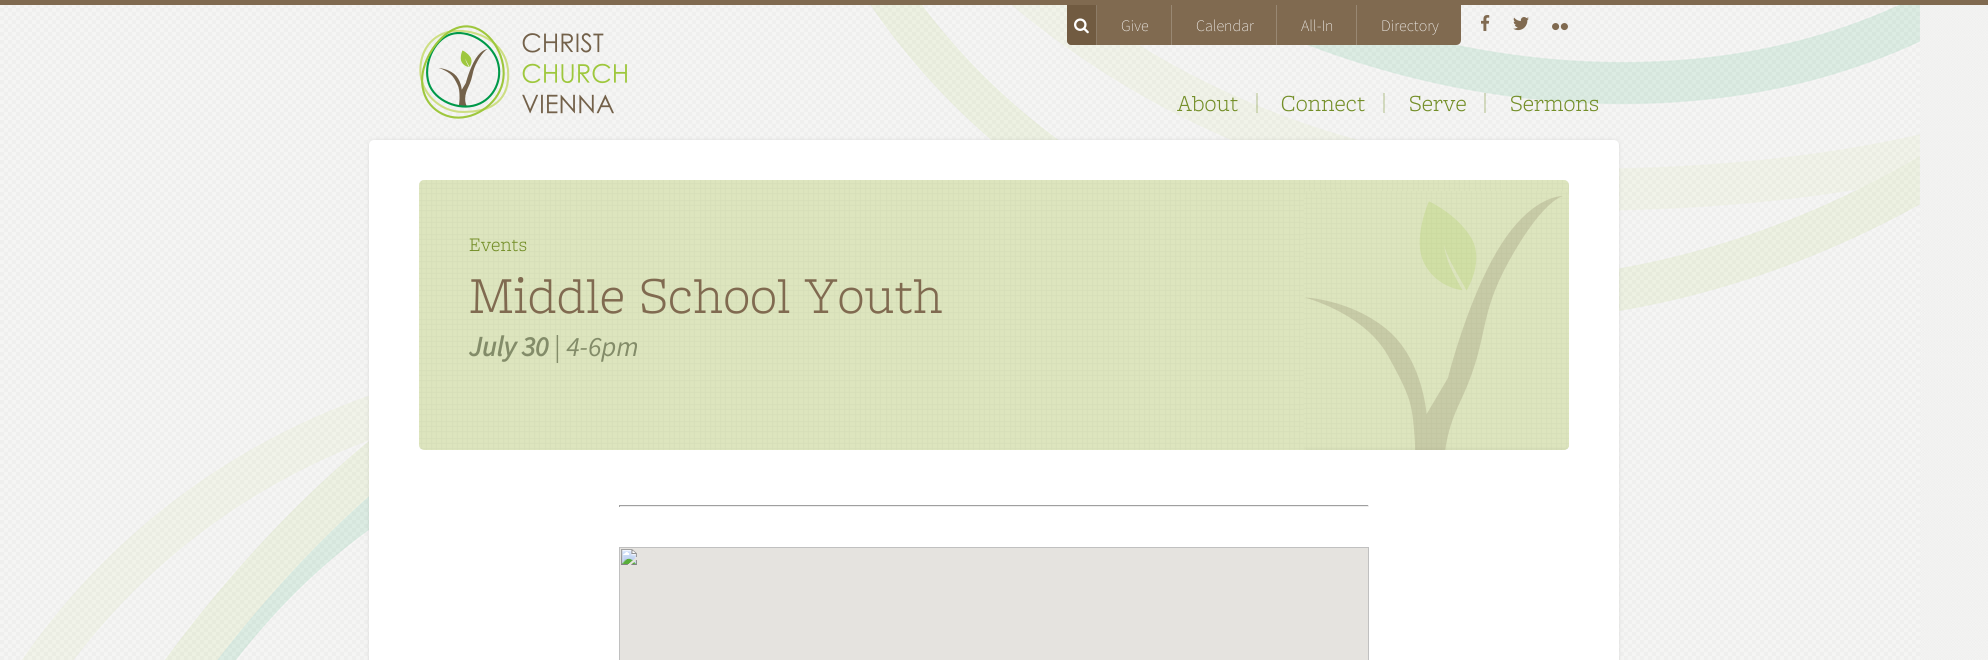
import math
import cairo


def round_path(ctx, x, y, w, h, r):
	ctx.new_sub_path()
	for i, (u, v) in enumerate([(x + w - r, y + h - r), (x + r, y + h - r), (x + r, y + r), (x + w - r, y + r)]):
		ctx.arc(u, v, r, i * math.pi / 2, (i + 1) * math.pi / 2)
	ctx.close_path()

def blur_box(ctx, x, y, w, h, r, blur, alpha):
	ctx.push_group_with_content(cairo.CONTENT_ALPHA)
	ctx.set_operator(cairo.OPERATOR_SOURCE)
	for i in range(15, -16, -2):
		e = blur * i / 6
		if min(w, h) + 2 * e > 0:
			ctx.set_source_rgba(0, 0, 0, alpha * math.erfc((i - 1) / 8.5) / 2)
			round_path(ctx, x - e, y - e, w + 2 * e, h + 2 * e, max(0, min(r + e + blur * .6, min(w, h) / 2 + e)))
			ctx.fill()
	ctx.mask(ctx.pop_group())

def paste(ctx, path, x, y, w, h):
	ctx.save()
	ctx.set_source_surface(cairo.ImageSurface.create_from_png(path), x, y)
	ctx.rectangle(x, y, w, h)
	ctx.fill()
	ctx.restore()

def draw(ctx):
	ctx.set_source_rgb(1, 1, 1)
	ctx.paint()
	paste(ctx, 'media/1.png', 0, 5, 1988, 655)
	paste(ctx, 'media/2.png', 0, 5, 1920, 655)
	ctx.set_source_rgb(0.502, 0.416, 0.314)
	ctx.rectangle(0, 0, 1988, 5)
	ctx.fill()
	paste(ctx, 'media/3.png', 419, 25, 208, 94)
	ctx.new_path()
	ctx.move_to(1067, 5)
	ctx.line_to(1461, 5)
	ctx.line_to(1461, 40)
	ctx.curve_to(1461, 43, 1459, 45, 1456, 45)
	ctx.line_to(1072, 45)
	ctx.curve_to(1069, 45, 1067, 43, 1067, 40)
	ctx.close_path()
	ctx.fill()
	ctx.set_source_rgb(0.443, 0.357, 0.255)
	ctx.new_path()
	ctx.move_to(1067, 5)
	ctx.line_to(1097, 5)
	ctx.line_to(1097, 45)
	ctx.line_to(1072, 45)
	ctx.curve_to(1069, 45, 1067, 43, 1067, 40)
	ctx.close_path()
	ctx.fill()
	ctx.set_source_rgb(0.553, 0.486, 0.404)
	ctx.rectangle(1096, 5, 1, 40)
	ctx.fill()
	paste(ctx, 'media/4.png', 1074, 18, 15, 16)
	ctx.set_source_rgb(0.6, 0.533, 0.451)
	ctx.rectangle(1171, 5, 1, 40)
	ctx.fill()
	ctx.select_font_face('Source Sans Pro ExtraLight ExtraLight')
	ctx.set_font_size(16)
	ctx.set_source_rgb(1, 1, 1)
	ctx.move_to(1121, 31)
	ctx.show_text('Give')
	ctx.set_source_rgb(0.6, 0.533, 0.451)
	ctx.rectangle(1276, 5, 1, 40)
	ctx.fill()
	ctx.set_source_rgb(1, 1, 1)
	ctx.move_to(1196, 31)
	ctx.show_text('Calendar')
	ctx.set_source_rgb(0.6, 0.533, 0.451)
	ctx.rectangle(1356, 5, 1, 40)
	ctx.fill()
	ctx.set_source_rgb(1, 1, 1)
	ctx.move_to(1301, 31)
	ctx.show_text('All-In')
	ctx.move_to(1381, 31)
	ctx.show_text('Directory')
	paste(ctx, 'media/5.png', 1481, 15, 9, 16)
	paste(ctx, 'media/6.png', 1513, 17, 16, 14)
	paste(ctx, 'media/7.png', 1552, 23, 16, 8)
	ctx.select_font_face('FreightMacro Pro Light')
	ctx.set_font_size(24)
	ctx.set_source_rgb(0.451, 0.557, 0.153)
	ctx.move_to(1177, 111)
	ctx.show_text('About')
	ctx.set_source_rgba(0.451, 0.557, 0.153, 0.25)
	ctx.rectangle(1256, 93, 2, 20)
	ctx.fill()
	ctx.set_source_rgb(0.451, 0.557, 0.153)
	ctx.move_to(1281, 111)
	ctx.show_text('Connect')
	ctx.set_source_rgba(0.451, 0.557, 0.153, 0.25)
	ctx.rectangle(1383, 93, 2, 20)
	ctx.fill()
	ctx.set_source_rgb(0.451, 0.557, 0.153)
	ctx.move_to(1409, 111)
	ctx.show_text('Serve')
	ctx.set_source_rgba(0.451, 0.557, 0.153, 0.25)
	ctx.rectangle(1484, 93, 2, 20)
	ctx.fill()
	ctx.set_source_rgb(0.451, 0.557, 0.153)
	ctx.move_to(1510, 111)
	ctx.show_text('Sermons')
	ctx.set_source_rgb(0, 0, 0)
	blur_box(ctx, 369, 140, 1250, 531, 5, 2, 0.1)
	ctx.set_source_rgb(1, 1, 1)
	round_path(ctx, 369, 140, 1250, 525, 5)
	ctx.fill()
	paste(ctx, 'media/8.png', 419, 180, 1150, 270)
	ctx.set_font_size(20)
	ctx.set_source_rgb(0.451, 0.557, 0.153)
	ctx.move_to(469, 251)
	ctx.show_text('Events')
	paste(ctx, 'media/9.png', 1304, 191, 265, 259)
	ctx.set_font_size(54)
	ctx.set_source_rgb(0.502, 0.416, 0.314)
	ctx.move_to(469, 313)
	ctx.show_text('Middle School Youth')
	ctx.select_font_face('Source Sans Pro', cairo.FONT_SLANT_ITALIC, cairo.FONT_WEIGHT_BOLD)
	ctx.set_font_size(28)
	ctx.set_source_rgb(0.514, 0.549, 0.412)
	ctx.move_to(469, 356)
	ctx.show_text('July 30')
	ctx.select_font_face('Source Sans Pro', cairo.FONT_SLANT_ITALIC)
	ctx.move_to(554, 356)
	ctx.show_text('| 4-6pm')
	ctx.set_source_rgb(0.624, 0.624, 0.624)
	ctx.rectangle(619, 505, 750, 1)
	ctx.fill()
	ctx.set_source_rgb(0.933, 0.933, 0.933)
	ctx.rectangle(1368, 505, 1, 2)
	ctx.rectangle(619, 506, 750, 1)
	ctx.fill()
	ctx.set_source_rgb(0.624, 0.624, 0.624)
	ctx.rectangle(619, 505, 1, 2)
	ctx.fill()
	paste(ctx, 'media/10.png', 619, 547, 750, 113)


surface = cairo.ImageSurface(cairo.FORMAT_RGB24, 1988, 660)
ctx = cairo.Context(surface)
options = cairo.FontOptions()
options.set_hint_metrics(cairo.HINT_METRICS_OFF)
options.set_hint_style(cairo.HINT_STYLE_NONE)
ctx.set_font_options(options)
ctx.set_miter_limit(4)
draw(ctx)
surface.write_to_png('image.png')
